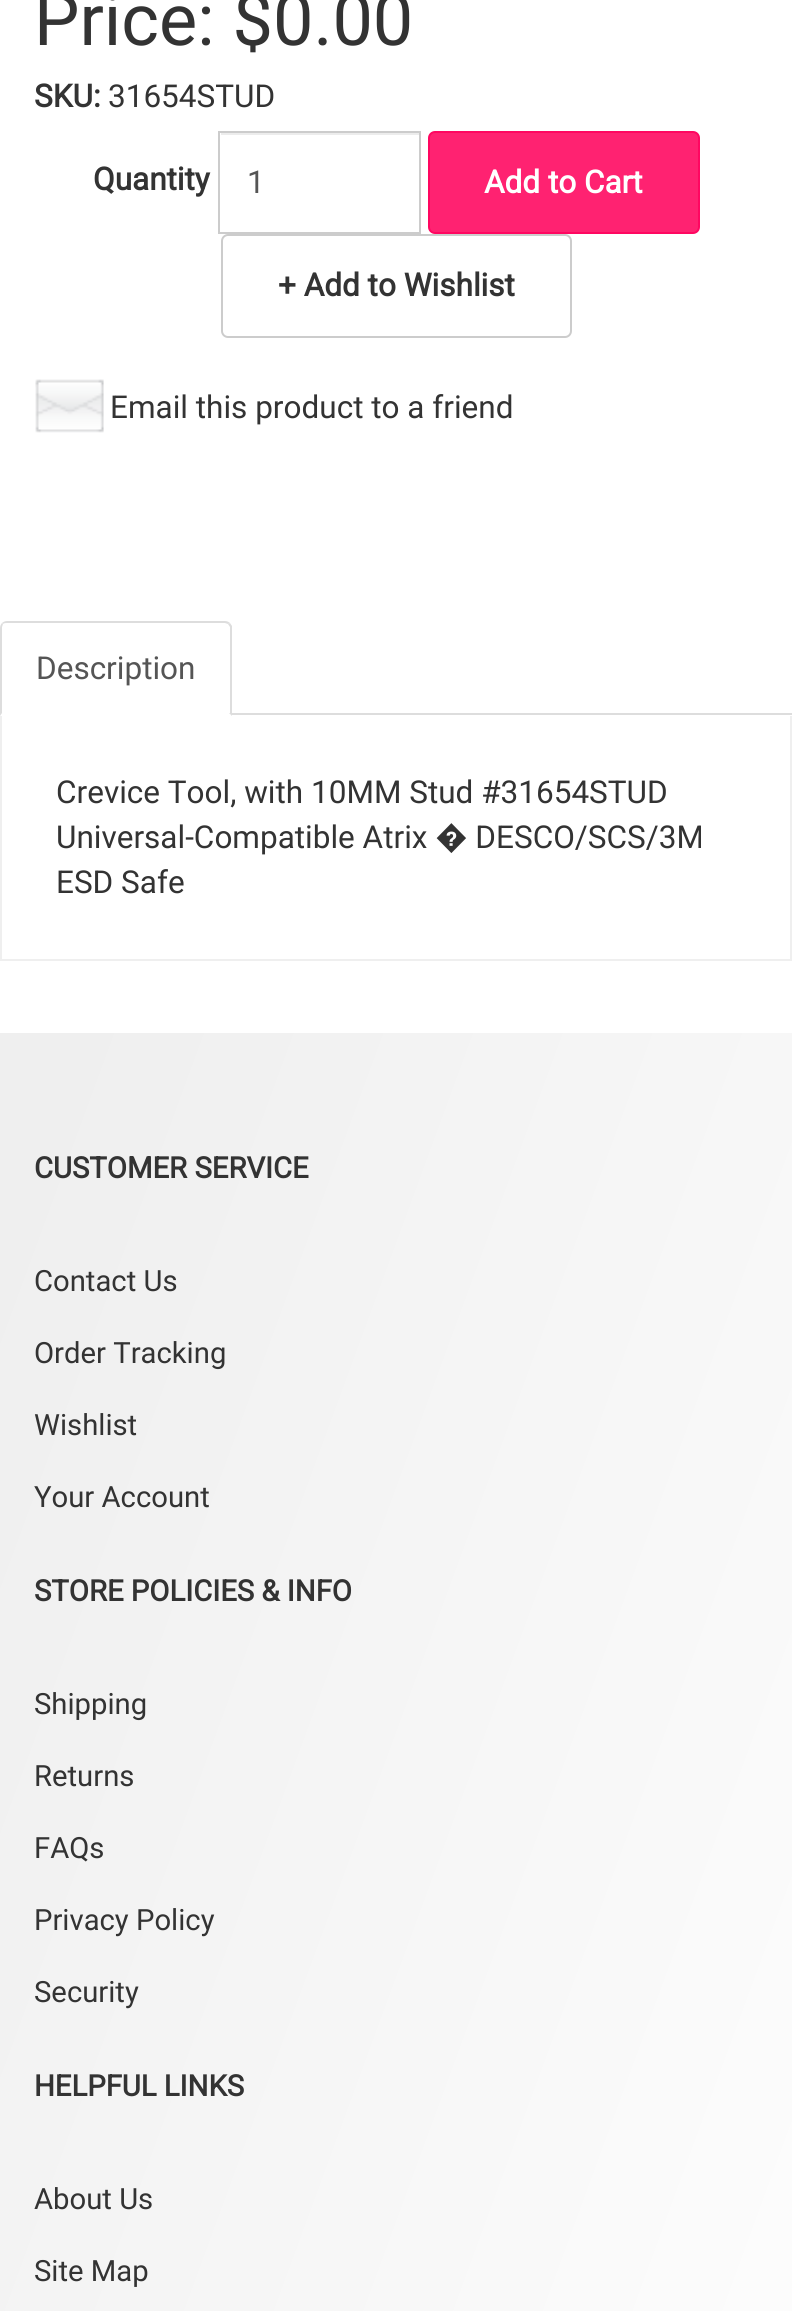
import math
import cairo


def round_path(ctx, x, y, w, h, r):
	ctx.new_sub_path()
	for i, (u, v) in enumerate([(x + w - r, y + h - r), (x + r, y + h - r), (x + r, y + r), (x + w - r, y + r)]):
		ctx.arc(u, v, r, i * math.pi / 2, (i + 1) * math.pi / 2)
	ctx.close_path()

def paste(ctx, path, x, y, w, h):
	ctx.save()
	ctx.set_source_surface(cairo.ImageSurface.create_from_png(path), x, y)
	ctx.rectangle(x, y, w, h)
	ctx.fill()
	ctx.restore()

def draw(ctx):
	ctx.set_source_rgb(1, 1, 1)
	ctx.paint()
	ctx.select_font_face('Roboto')
	ctx.set_font_size(72)
	ctx.set_source_rgb(0.2, 0.2, 0.2)
	ctx.move_to(34, 45)
	ctx.show_text('Price: $0.00')
	ctx.select_font_face('Roboto', cairo.FONT_SLANT_NORMAL, cairo.FONT_WEIGHT_BOLD)
	ctx.set_font_size(31.5)
	ctx.move_to(34, 107)
	ctx.show_text('SKU:')
	ctx.select_font_face('Roboto')
	ctx.move_to(108, 107)
	ctx.show_text('31654STUD')
	ctx.select_font_face('Roboto', cairo.FONT_SLANT_NORMAL, cairo.FONT_WEIGHT_BOLD)
	ctx.move_to(93, 190)
	ctx.show_text('Quantity')
	ctx.set_source_rgb(0.925, 0.925, 0.925)
	ctx.rectangle(221, 133, 198, 2)
	ctx.fill()
	ctx.rectangle(219, 132, 201, 101)
	ctx.set_source_rgb(0.8, 0.8, 0.8)
	ctx.stroke()
	ctx.select_font_face('Roboto')
	ctx.set_source_rgb(0.333, 0.333, 0.333)
	ctx.move_to(247, 193)
	ctx.show_text('1')
	ctx.set_source_rgb(1, 0.133, 0.443)
	round_path(ctx, 429, 132, 270, 101, 6)
	ctx.fill_preserve()
	ctx.set_source_rgb(1, 0.031, 0.38)
	ctx.stroke()
	ctx.select_font_face('Roboto', cairo.FONT_SLANT_NORMAL, cairo.FONT_WEIGHT_BOLD)
	ctx.set_source_rgb(1, 1, 1)
	ctx.move_to(484, 193)
	ctx.show_text('Add to Cart')
	round_path(ctx, 222, 235, 349, 102, 6)
	ctx.set_source_rgb(0.8, 0.8, 0.8)
	ctx.stroke()
	ctx.set_source_rgb(0.2, 0.2, 0.2)
	ctx.move_to(278, 296)
	ctx.show_text('+ Add to Wishlist')
	paste(ctx, 'media/1.png', 35, 379, 69, 54)
	ctx.select_font_face('Roboto')
	ctx.move_to(110, 418)
	ctx.show_text('Email this product to a friend')
	ctx.set_source_rgb(0.867, 0.867, 0.867)
	ctx.rectangle(232, 713, 560, 2)
	ctx.fill()
	ctx.new_path()
	ctx.move_to(7, 621)
	ctx.curve_to(5, 621, 3, 622, 2, 623)
	ctx.line_to(3, 624)
	ctx.curve_to(4, 623, 6, 623, 7, 623)
	ctx.line_to(225, 623)
	ctx.line_to(228, 624)
	ctx.line_to(230, 623)
	ctx.curve_to(229, 622, 227, 621, 225, 621)
	ctx.close_path()
	ctx.fill()
	ctx.new_path()
	ctx.move_to(230, 623)
	ctx.line_to(232, 626)
	ctx.line_to(232, 716)
	ctx.line_to(229, 713)
	ctx.line_to(230, 713)
	ctx.line_to(230, 627)
	ctx.line_to(228, 624)
	ctx.close_path()
	ctx.fill()
	ctx.new_path()
	ctx.move_to(0, 716)
	ctx.line_to(2, 713)
	ctx.line_to(2, 627)
	ctx.line_to(3, 624)
	ctx.line_to(2, 623)
	ctx.curve_to(1, 624, 0, 626, 0, 628)
	ctx.close_path()
	ctx.fill()
	ctx.set_source_rgb(0.333, 0.333, 0.333)
	ctx.move_to(36, 679)
	ctx.show_text('Description')
	ctx.set_source_rgb(0.937, 0.937, 0.937)
	ctx.rectangle(790, 716, 2, 245)
	ctx.rectangle(0, 959, 792, 2)
	ctx.rectangle(0, 716, 2, 245)
	ctx.fill()
	ctx.set_source_rgb(0.2, 0.2, 0.2)
	for x, y, s in [
		(56, 803, 'Crevice Tool, with 10MM Stud #31654STUD'),
		(56, 848, 'Universal-Compatible Atrix � DESCO/SCS/3M'),
		(56, 893, 'ESD Safe'),
	]:
		ctx.move_to(x, y)
		ctx.show_text(s)
	gradient = cairo.LinearGradient(-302, 1857, 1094, 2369)
	gradient.add_color_stop_rgba(0.04, 0.937, 0.937, 0.937, 1)
	gradient.add_color_stop_rgba(0.95, 1, 1, 1, 1)
	ctx.set_source(gradient)
	ctx.rectangle(0, 1033, 792, 1278)
	ctx.fill()
	ctx.select_font_face('Roboto', cairo.FONT_SLANT_NORMAL, cairo.FONT_WEIGHT_BOLD)
	ctx.set_font_size(29.25)
	ctx.set_source_rgb(0.2, 0.2, 0.2)
	ctx.move_to(34, 1178)
	ctx.show_text('CUSTOMER SERVICE')
	ctx.select_font_face('Roboto')
	for x, y, s in [
		(34, 1291, 'Contact Us'),
		(34, 1363, 'Order Tracking'),
		(34, 1435, 'Wishlist'),
		(34, 1507, 'Your Account'),
	]:
		ctx.move_to(x, y)
		ctx.show_text(s)
	ctx.select_font_face('Roboto', cairo.FONT_SLANT_NORMAL, cairo.FONT_WEIGHT_BOLD)
	ctx.move_to(34, 1601)
	ctx.show_text('STORE POLICIES & INFO')
	ctx.select_font_face('Roboto')
	for x, y, s in [
		(34, 1714, 'Shipping'),
		(34, 1786, 'Returns'),
		(34, 1858, 'FAQs'),
		(34, 1930, 'Privacy Policy'),
		(34, 2002, 'Security'),
	]:
		ctx.move_to(x, y)
		ctx.show_text(s)
	ctx.select_font_face('Roboto', cairo.FONT_SLANT_NORMAL, cairo.FONT_WEIGHT_BOLD)
	ctx.move_to(34, 2096)
	ctx.show_text('HELPFUL LINKS')
	ctx.select_font_face('Roboto')
	ctx.move_to(34, 2209)
	ctx.show_text('About Us')
	ctx.move_to(34, 2281)
	ctx.show_text('Site Map')


surface = cairo.ImageSurface(cairo.FORMAT_RGB24, 792, 2311)
ctx = cairo.Context(surface)
options = cairo.FontOptions()
options.set_hint_metrics(cairo.HINT_METRICS_OFF)
options.set_hint_style(cairo.HINT_STYLE_NONE)
ctx.set_font_options(options)
ctx.set_miter_limit(4)
draw(ctx)
surface.write_to_png('image.png')
